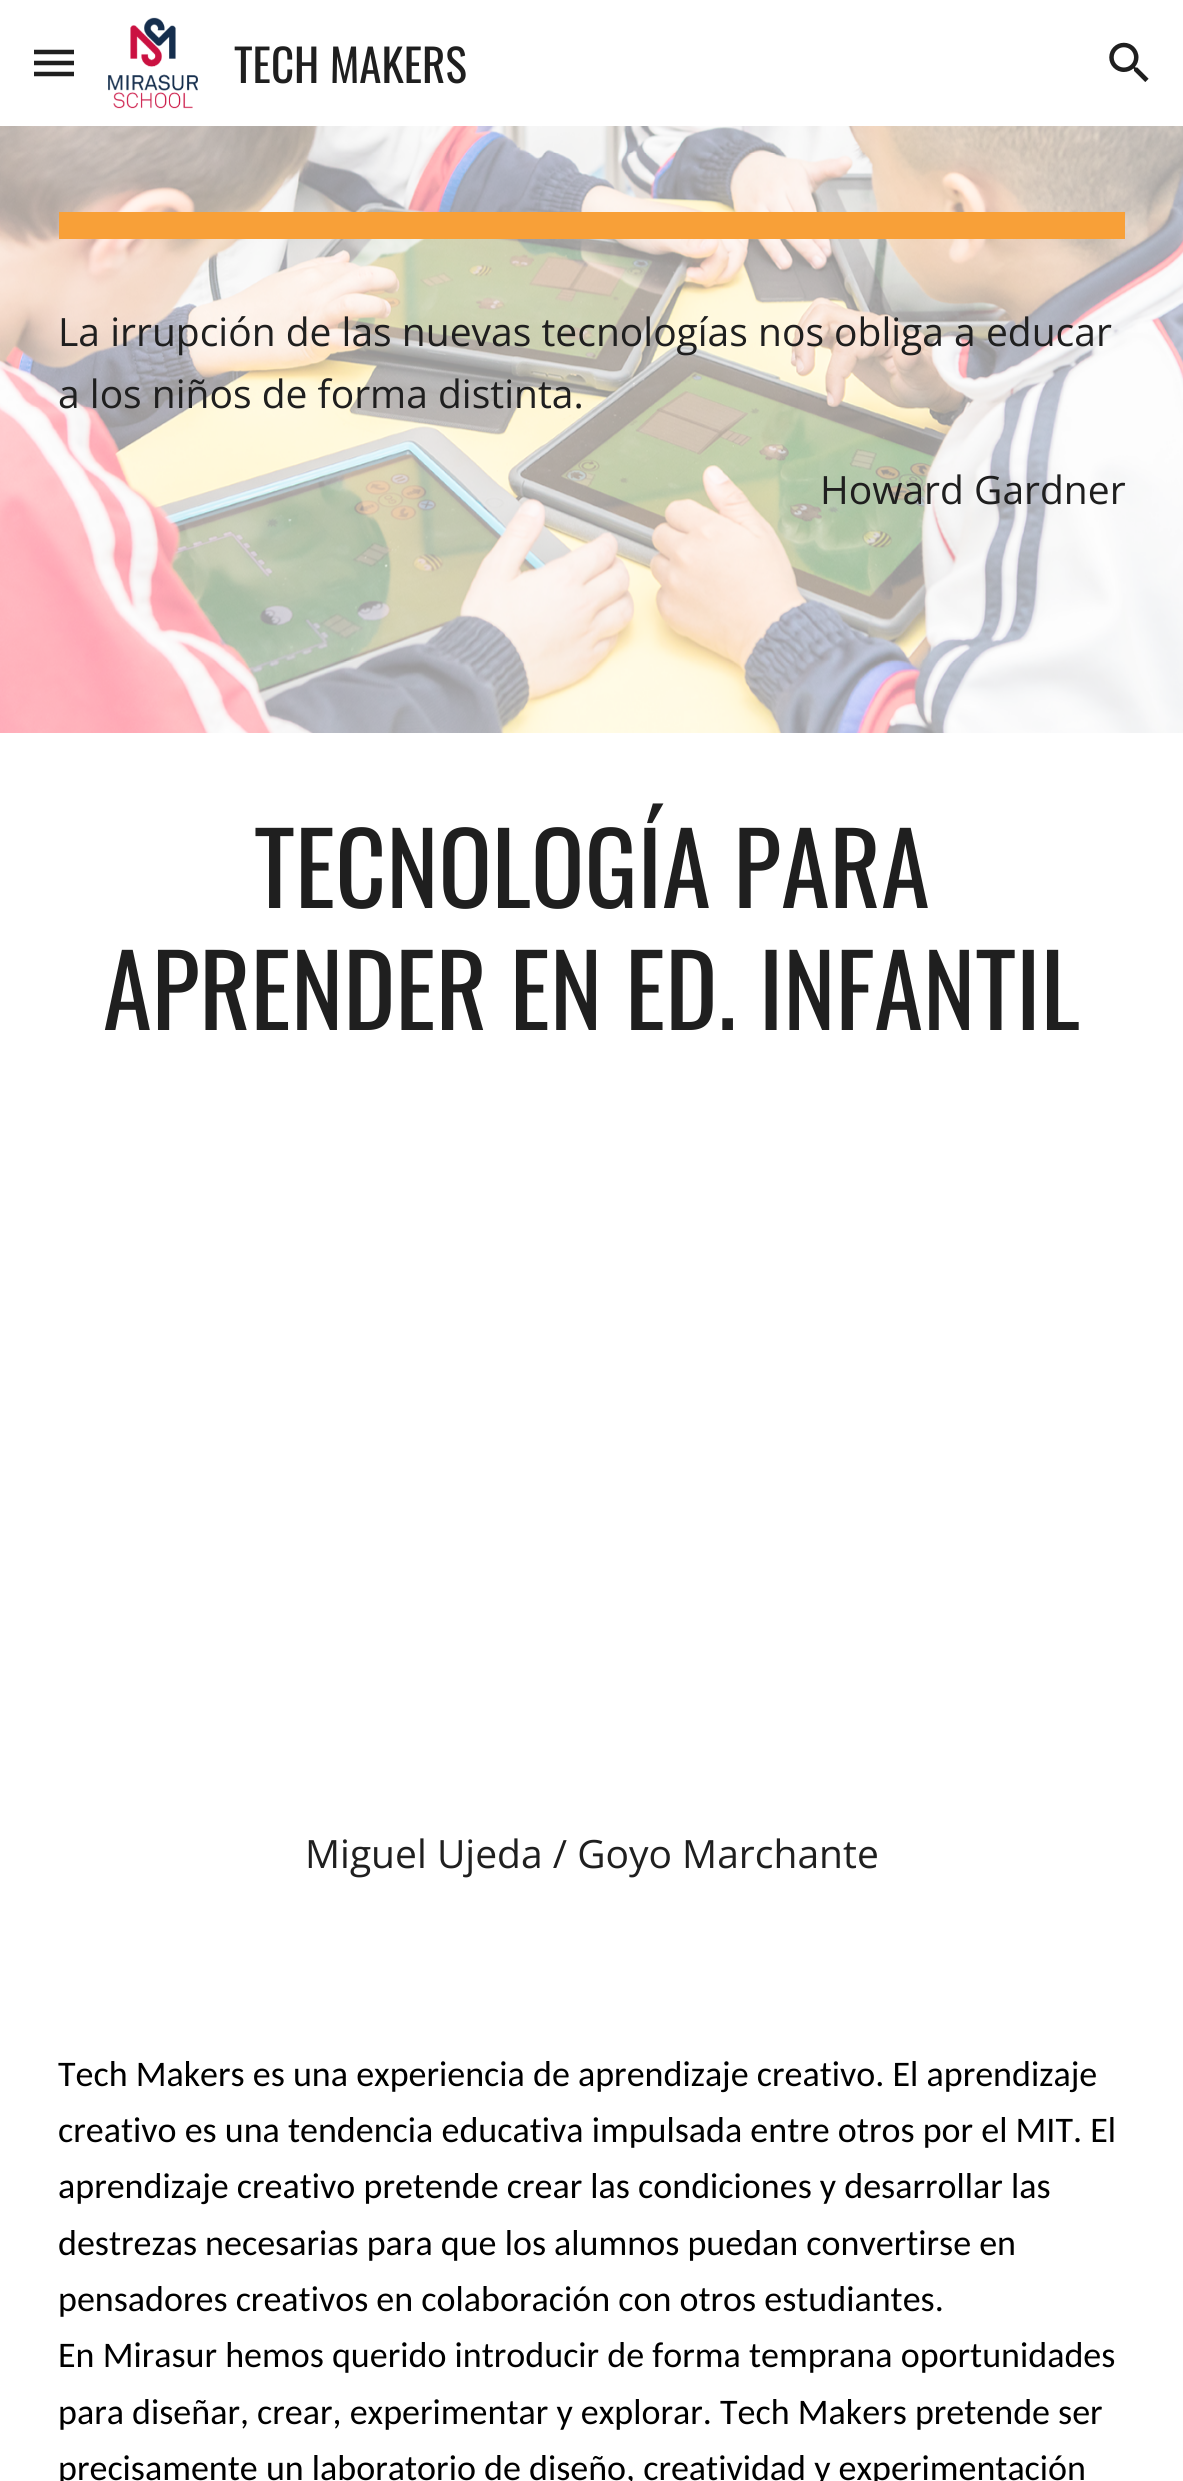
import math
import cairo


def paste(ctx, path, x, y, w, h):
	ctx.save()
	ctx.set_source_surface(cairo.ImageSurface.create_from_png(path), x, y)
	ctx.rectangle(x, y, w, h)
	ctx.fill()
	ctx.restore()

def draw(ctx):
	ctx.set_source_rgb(1, 1, 1)
	ctx.paint()
	ctx.new_path()
	ctx.move_to(34, 52)
	ctx.line_to(74, 52)
	ctx.move_to(34, 63)
	ctx.line_to(74, 63)
	ctx.move_to(34, 74)
	ctx.line_to(74, 74)
	ctx.set_source_rgb(0.122, 0.122, 0.122)
	ctx.set_line_width(4.5)
	ctx.stroke()
	paste(ctx, 'media/1.png', 108, 17, 90, 92)
	ctx.select_font_face('Oswald')
	ctx.set_font_size(45)
	ctx.move_to(234, 83)
	ctx.show_text('TECH MAKERS')
	paste(ctx, 'media/2.png', 1109, 42, 40, 40)
	paste(ctx, 'media/3.png', 0, 126, 1183, 607)
	ctx.set_source_rgb(0.969, 0.627, 0.22)
	ctx.rectangle(59, 212, 1066, 27)
	ctx.fill()
	ctx.select_font_face('Open Sans')
	ctx.set_font_size(39)
	ctx.set_source_rgb(0.122, 0.122, 0.122)
	for x, y, s in [
		(58, 346, 'La irrupción de las nuevas tecnologías nos obliga a educar'),
		(58, 408, 'a los niños de forma distinta.'),
		(820, 504, 'Howard Gardner'),
	]:
		ctx.move_to(x, y)
		ctx.show_text(s)
	ctx.select_font_face('Oswald')
	ctx.set_font_size(99)
	ctx.move_to(254, 908)
	ctx.show_text('TECNOLOGÍA PARA')
	ctx.move_to(103, 1030)
	ctx.show_text('APRENDER EN ED. INFANTIL')
	ctx.select_font_face('Open Sans')
	ctx.set_font_size(39)
	ctx.move_to(305, 1868)
	ctx.show_text('Miguel Ujeda / Goyo Marchante')
	ctx.select_font_face('Carlito')
	ctx.set_font_size(36)
	ctx.set_source_rgb(0, 0, 0)
	for x, y, s in [
		(58, 2086, 'Tech Makers es una experiencia de aprendizaje creativo. El aprendizaje'),
		(58, 2142, 'creativo es una tendencia educativa impulsada entre otros por el MIT. El'),
		(58, 2198, 'aprendizaje creativo pretende crear las condiciones y desarrollar las'),
		(58, 2255, 'destrezas necesarias para que los alumnos puedan convertirse en'),
		(58, 2311, 'pensadores creativos en colaboración con otros estudiantes.'),
		(58, 2367, 'En Mirasur hemos querido introducir de forma temprana oportunidades'),
		(58, 2424, 'para diseñar, crear, experimentar y explorar. Tech Makers pretende ser'),
		(58, 2480, 'precisamente un laboratorio de diseño, creatividad y experimentación'),
	]:
		ctx.move_to(x, y)
		ctx.show_text(s)


surface = cairo.ImageSurface(cairo.FORMAT_RGB24, 1183, 2481)
ctx = cairo.Context(surface)
options = cairo.FontOptions()
options.set_hint_metrics(cairo.HINT_METRICS_OFF)
options.set_hint_style(cairo.HINT_STYLE_NONE)
ctx.set_font_options(options)
ctx.set_miter_limit(4)
draw(ctx)
surface.write_to_png('image.png')
